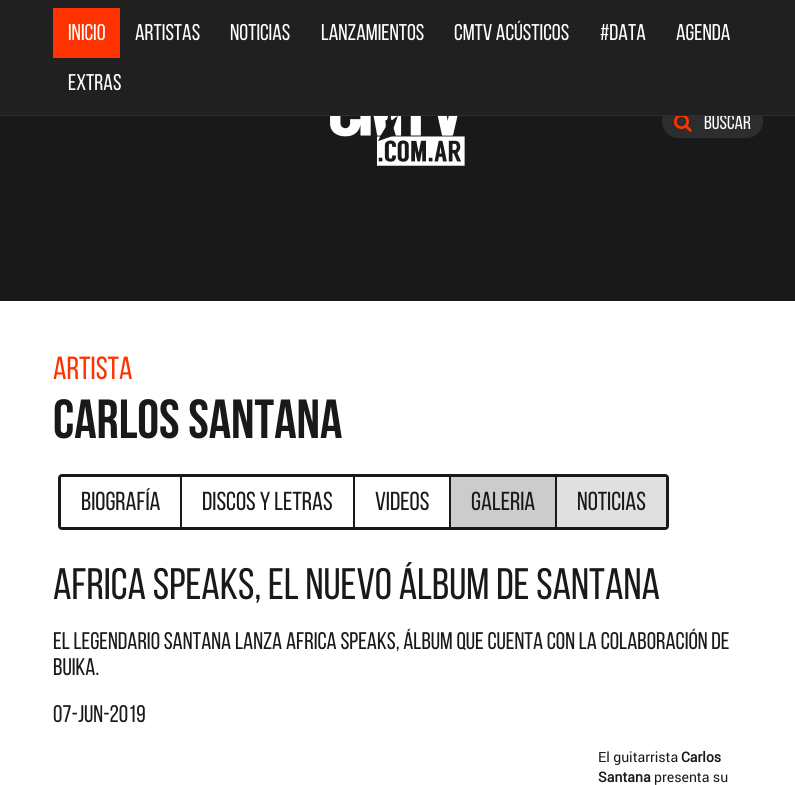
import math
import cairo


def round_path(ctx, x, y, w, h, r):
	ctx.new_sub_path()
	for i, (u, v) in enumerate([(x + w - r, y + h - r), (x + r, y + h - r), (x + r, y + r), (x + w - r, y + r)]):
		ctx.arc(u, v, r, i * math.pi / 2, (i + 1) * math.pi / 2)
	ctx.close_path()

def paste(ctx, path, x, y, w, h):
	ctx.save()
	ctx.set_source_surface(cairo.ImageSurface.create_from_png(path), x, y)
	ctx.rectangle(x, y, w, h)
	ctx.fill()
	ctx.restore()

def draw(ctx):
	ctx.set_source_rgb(1, 1, 1)
	ctx.paint()
	ctx.set_source_rgb(0.098, 0.098, 0.098)
	ctx.rectangle(0, 116, 795, 185)
	ctx.fill()
	ctx.set_source_rgb(0.176, 0.176, 0.176)
	round_path(ctx, 662, 105, 101, 33, 16.5)
	ctx.fill()
	ctx.select_font_face('Bebas Neue')
	ctx.set_font_size(20)
	ctx.set_source_rgb(1, 1, 1)
	ctx.move_to(704, 129)
	ctx.show_text('Buscar')
	ctx.set_source_rgb(0.125, 0.125, 0.125)
	ctx.rectangle(0, 0, 795, 115)
	ctx.fill()
	ctx.set_source_rgb(0.176, 0.176, 0.176)
	ctx.rectangle(0, 115, 795, 1)
	ctx.fill()
	ctx.set_source_rgb(1, 0.2, 0)
	ctx.rectangle(53, 8, 67, 50)
	ctx.fill()
	ctx.set_font_size(22.75)
	ctx.set_source_rgb(1, 1, 1)
	for x, y, s in [
		(68, 40, 'INICIO'),
		(135, 40, 'ARTISTAS'),
		(230, 40, 'NOTICIAS'),
		(321, 40, 'LANZAMIENTOS'),
		(454, 40, 'CMTV ACÚSTICOS'),
		(600, 40, '#DATA'),
		(676, 40, 'AGENDA'),
		(68, 90, 'EXTRAS'),
	]:
		ctx.move_to(x, y)
		ctx.show_text(s)
	paste(ctx, 'media/1.png', 330, 116, 135, 50)
	paste(ctx, 'media/2.png', 674, 116, 18, 16)
	ctx.set_font_size(32)
	ctx.set_source_rgb(1, 0.2, 0)
	ctx.move_to(53, 379)
	ctx.show_text('Artista')
	ctx.select_font_face('Bebas Neue', cairo.FONT_SLANT_NORMAL, cairo.FONT_WEIGHT_BOLD)
	ctx.set_font_size(55)
	ctx.set_source_rgb(0.098, 0.098, 0.098)
	ctx.move_to(53, 438)
	ctx.show_text('Carlos Santana')
	ctx.new_path()
	ctx.move_to(62, 474.5)
	ctx.line_to(180.5, 474.5)
	ctx.line_to(180.5, 529.5)
	ctx.line_to(62, 529.5)
	ctx.curve_to(60, 529.5, 58.5, 528, 58.5, 526)
	ctx.line_to(58.5, 478)
	ctx.curve_to(58.5, 476, 60, 474.5, 62, 474.5)
	ctx.close_path()
	ctx.set_line_width(1)
	ctx.stroke()
	ctx.rectangle(60, 475, 121, 2)
	ctx.rectangle(60, 527, 121, 2)
	ctx.rectangle(59, 476, 2, 52)
	ctx.fill()
	ctx.select_font_face('Bebas Neue')
	ctx.set_font_size(26)
	ctx.move_to(81, 510)
	ctx.show_text('Biografía')
	ctx.rectangle(181, 474, 375, 3)
	ctx.rectangle(353, 474, 1, 56)
	ctx.rectangle(181, 527, 173, 3)
	ctx.rectangle(181, 474, 1, 56)
	ctx.fill()
	ctx.move_to(202, 510)
	ctx.show_text('Discos y Letras')
	ctx.rectangle(449, 474, 1, 56)
	ctx.rectangle(354, 527, 96, 3)
	ctx.rectangle(354, 474, 1, 56)
	ctx.fill()
	ctx.move_to(375, 510)
	ctx.show_text('Videos')
	ctx.set_source_rgb(0.8, 0.8, 0.8)
	ctx.rectangle(451, 477, 104, 50)
	ctx.fill()
	ctx.set_source_rgb(0.098, 0.098, 0.098)
	ctx.rectangle(555, 474, 1, 56)
	ctx.rectangle(450, 527, 106, 3)
	ctx.rectangle(450, 474, 1, 56)
	ctx.fill()
	ctx.move_to(471, 510)
	ctx.show_text('Galeria')
	ctx.set_source_rgb(0.878, 0.878, 0.878)
	ctx.new_path()
	ctx.move_to(557, 477)
	ctx.line_to(665, 477)
	ctx.curve_to(665.5, 477, 666, 477.5, 666, 478)
	ctx.line_to(666, 526)
	ctx.curve_to(666, 526.5, 665.5, 527, 665, 527)
	ctx.line_to(557, 527)
	ctx.close_path()
	ctx.fill()
	ctx.new_path()
	ctx.move_to(556.5, 474.5)
	ctx.line_to(665, 474.5)
	ctx.curve_to(667, 474.5, 668.5, 476, 668.5, 478)
	ctx.line_to(668.5, 526)
	ctx.curve_to(668.5, 528, 667, 529.5, 665, 529.5)
	ctx.line_to(556.5, 529.5)
	ctx.close_path()
	ctx.set_source_rgb(0.098, 0.098, 0.098)
	ctx.stroke()
	ctx.rectangle(556, 475, 111, 2)
	ctx.rectangle(666, 476, 2, 52)
	ctx.rectangle(556, 527, 111, 2)
	ctx.fill()
	ctx.move_to(577, 510)
	ctx.show_text('Noticias')
	ctx.set_font_size(44)
	ctx.move_to(53, 599)
	ctx.show_text('Africa Speaks, el nuevo álbum de Santana')
	ctx.set_font_size(24)
	for x, y, s in [
		(53, 649, 'El legendario Santana lanza Africa Speaks, álbum que cuenta con la colaboración de'),
		(53, 675, 'Buika.'),
		(53, 722, '07-jun-2019'),
	]:
		ctx.move_to(x, y)
		ctx.show_text(s)
	ctx.select_font_face('Roboto')
	ctx.set_font_size(14)
	ctx.move_to(598, 762)
	ctx.show_text('El guitarrista')
	ctx.select_font_face('Roboto', cairo.FONT_SLANT_NORMAL, cairo.FONT_WEIGHT_BOLD)
	ctx.move_to(681, 762)
	ctx.show_text('Carlos')
	ctx.move_to(598, 782)
	ctx.show_text('Santana')
	ctx.select_font_face('Roboto')
	ctx.move_to(654, 782)
	ctx.show_text('presenta su')


surface = cairo.ImageSurface(cairo.FORMAT_RGB24, 795, 785)
ctx = cairo.Context(surface)
options = cairo.FontOptions()
options.set_hint_metrics(cairo.HINT_METRICS_OFF)
options.set_hint_style(cairo.HINT_STYLE_NONE)
ctx.set_font_options(options)
ctx.set_miter_limit(4)
draw(ctx)
surface.write_to_png('image.png')
